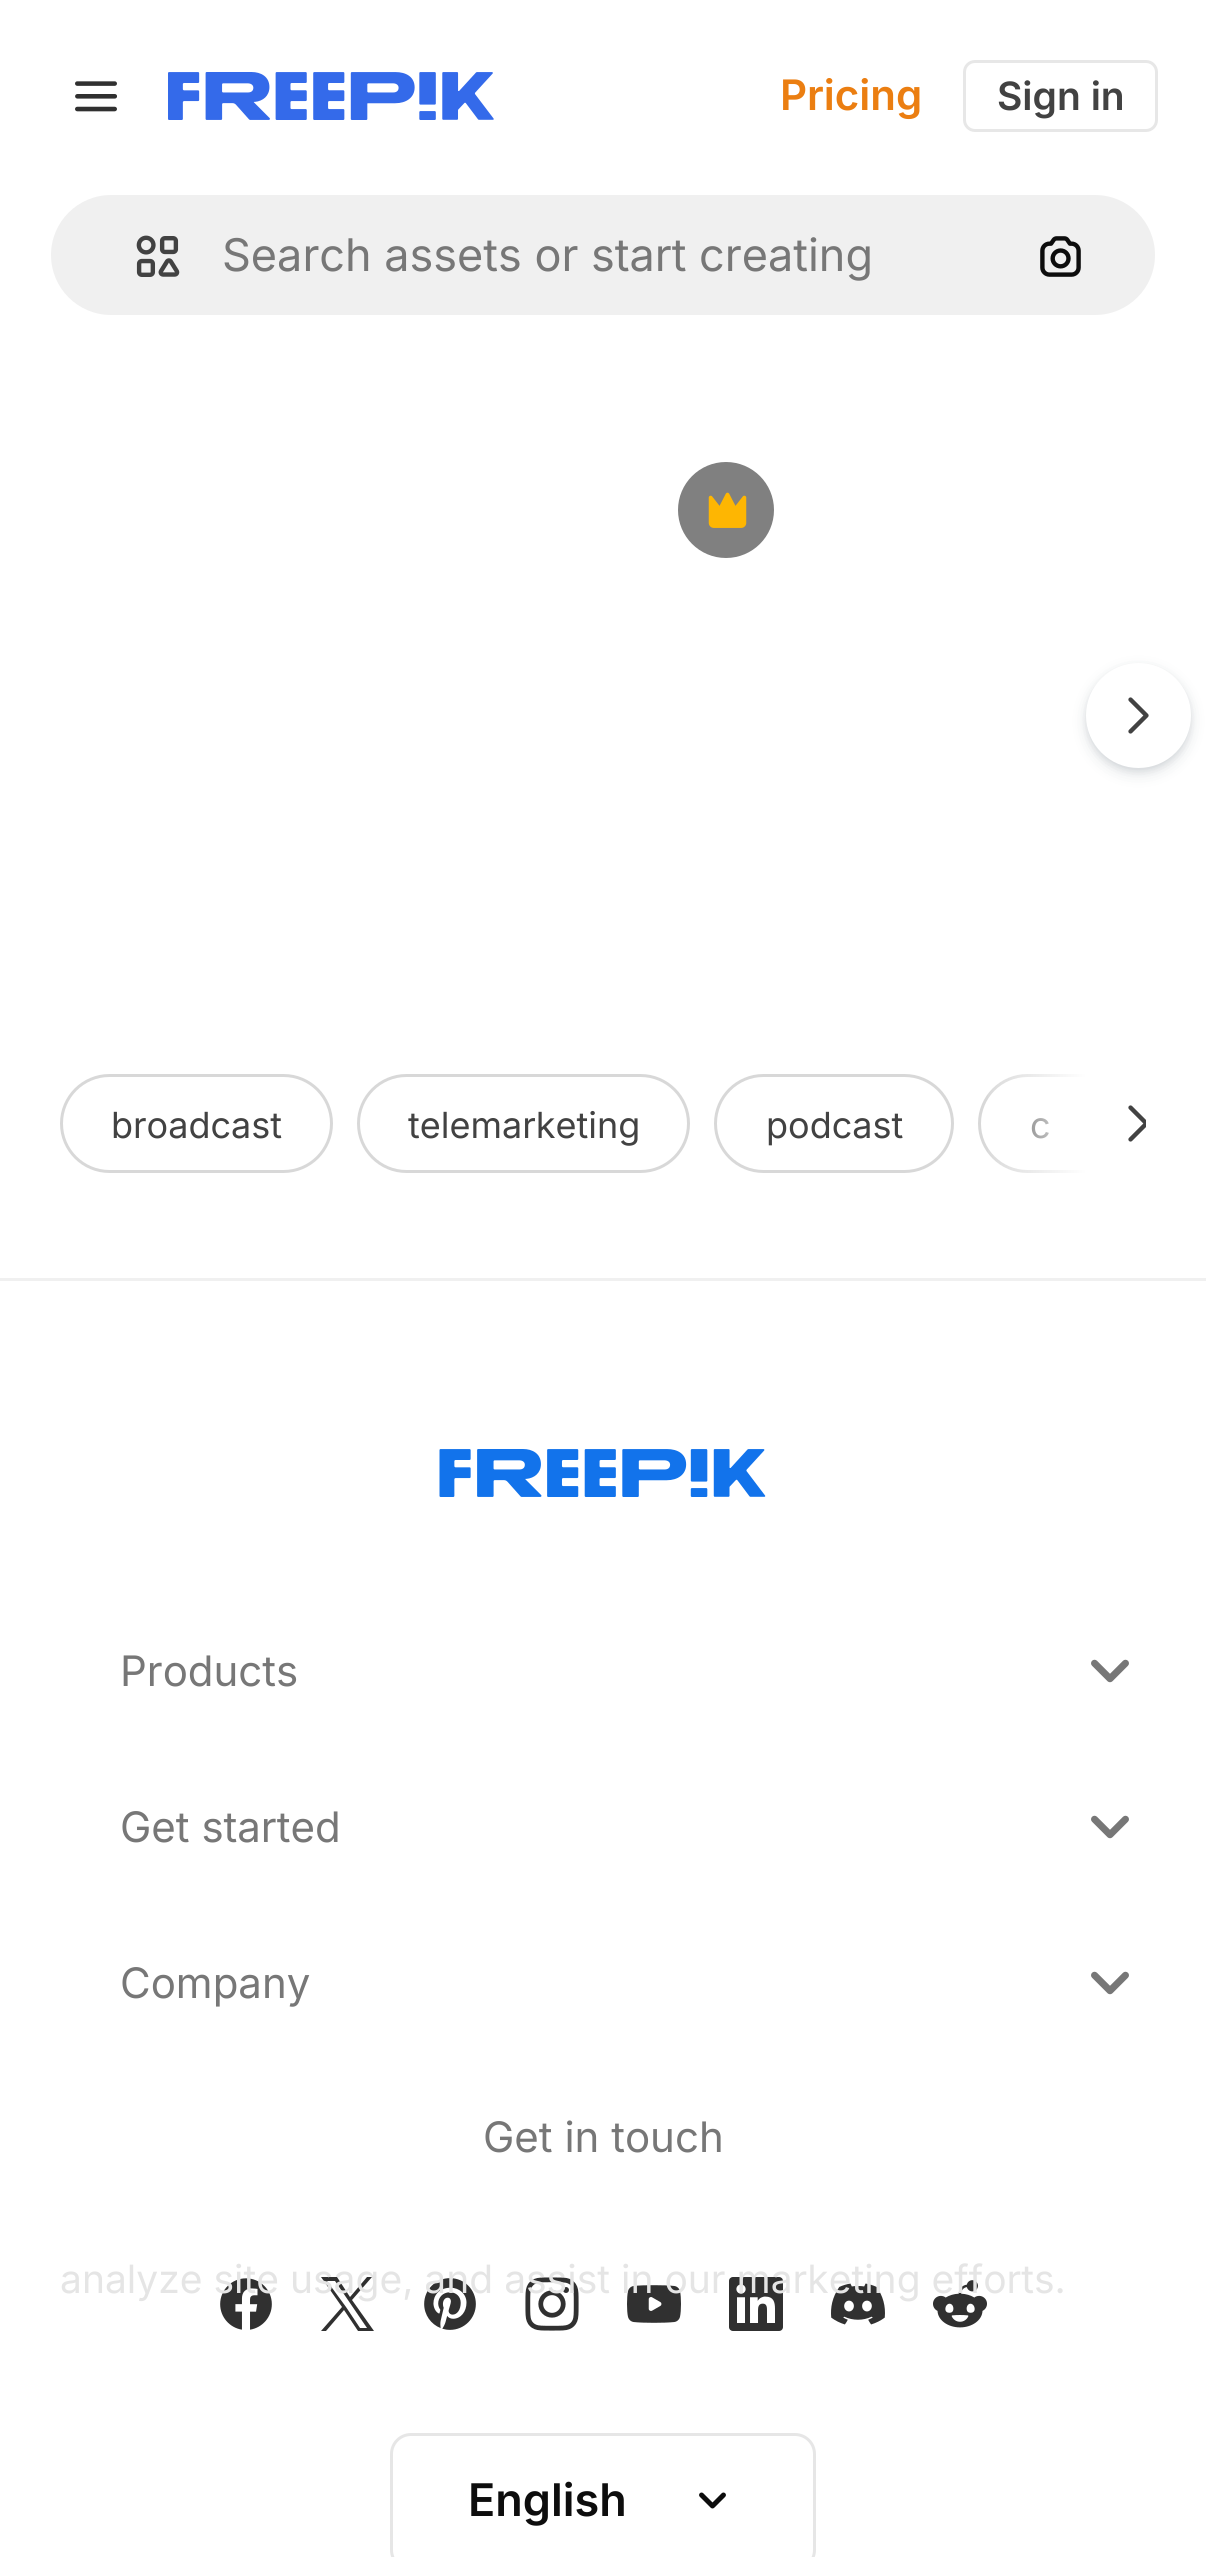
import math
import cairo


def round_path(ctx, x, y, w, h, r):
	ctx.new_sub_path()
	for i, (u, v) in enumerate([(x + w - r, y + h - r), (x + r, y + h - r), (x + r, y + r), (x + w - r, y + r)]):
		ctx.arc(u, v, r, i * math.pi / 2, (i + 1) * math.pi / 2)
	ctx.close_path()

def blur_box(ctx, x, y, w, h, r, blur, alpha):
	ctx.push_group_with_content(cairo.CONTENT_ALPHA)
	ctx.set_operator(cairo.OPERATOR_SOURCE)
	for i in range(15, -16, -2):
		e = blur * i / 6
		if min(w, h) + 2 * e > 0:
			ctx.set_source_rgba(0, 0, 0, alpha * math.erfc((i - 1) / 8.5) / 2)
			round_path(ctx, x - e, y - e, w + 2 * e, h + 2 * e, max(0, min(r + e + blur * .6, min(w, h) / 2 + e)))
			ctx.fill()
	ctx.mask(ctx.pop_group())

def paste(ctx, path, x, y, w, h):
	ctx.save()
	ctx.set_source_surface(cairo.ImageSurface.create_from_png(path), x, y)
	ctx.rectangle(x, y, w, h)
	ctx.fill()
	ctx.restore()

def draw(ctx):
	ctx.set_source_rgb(1, 1, 1)
	ctx.paint()
	paste(ctx, 'media/1.png', 75, 81, 42, 31)
	paste(ctx, 'media/2.png', 168, 72, 326, 48)
	ctx.select_font_face('Inter SemiBold')
	ctx.set_font_size(42)
	ctx.set_source_rgb(0.918, 0.494, 0.067)
	ctx.move_to(780, 110)
	ctx.show_text('Pricing')
	round_path(ctx, 964.5, 61.5, 192, 69, 10.5)
	ctx.set_source_rgb(0.906, 0.906, 0.906)
	ctx.set_line_width(3)
	ctx.stroke()
	ctx.set_font_size(39)
	ctx.set_source_rgb(0.259, 0.259, 0.259)
	ctx.move_to(997, 110)
	ctx.show_text('Sign in')
	ctx.set_source_rgb(0.941, 0.941, 0.941)
	round_path(ctx, 49.5, 193.5, 1107, 123, 61.5)
	ctx.fill_preserve()
	ctx.set_source_rgb(1, 1, 1)
	ctx.stroke()
	paste(ctx, 'media/3.png', 136, 235, 44, 42)
	ctx.select_font_face('Inter')
	ctx.set_font_size(45)
	ctx.set_source_rgb(0.467, 0.467, 0.467)
	ctx.move_to(222, 271)
	ctx.show_text('Search assets or start creating')
	paste(ctx, 'media/4.png', 1040, 236, 41, 41)
	ctx.set_source_rgb(0.502, 0.502, 0.502)
	ctx.arc(726, 510, 48, 0, 2 * math.pi)
	ctx.fill()
	paste(ctx, 'media/5.png', 708, 492, 39, 36)
	ctx.set_source_rgb(0.216, 0.286, 0.341)
	blur_box(ctx, 1086, 669, 105, 105, 52.5, 7.5, 0.15)
	blur_box(ctx, 1086, 666, 105, 105, 52.5, 3, 0.1)
	ctx.set_source_rgb(1, 1, 1)
	ctx.arc(1138.5, 715.5, 52.5, 0, 2 * math.pi)
	ctx.fill()
	paste(ctx, 'media/6.png', 1128, 697, 21, 37)
	round_path(ctx, 61.5, 1075.5, 270, 96, 48)
	ctx.set_source_rgb(0.847, 0.847, 0.847)
	ctx.stroke()
	ctx.set_font_size(36)
	ctx.set_source_rgb(0.259, 0.259, 0.259)
	ctx.move_to(111, 1138)
	ctx.show_text('broadcast')
	round_path(ctx, 358.5, 1075.5, 330, 96, 48)
	ctx.set_source_rgb(0.847, 0.847, 0.847)
	ctx.stroke()
	ctx.set_source_rgb(0.259, 0.259, 0.259)
	ctx.move_to(408, 1138)
	ctx.show_text('telemarketing')
	round_path(ctx, 715.5, 1075.5, 237, 96, 48)
	ctx.set_source_rgb(0.847, 0.847, 0.847)
	ctx.stroke()
	ctx.set_source_rgb(0.259, 0.259, 0.259)
	ctx.move_to(766, 1138)
	ctx.show_text('podcast')
	ctx.save()
	ctx.rectangle(60, 1074, 1086, 99)
	ctx.clip()
	round_path(ctx, 979.5, 1075.5, 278, 96, 48)
	ctx.set_source_rgb(0.847, 0.847, 0.847)
	ctx.stroke()
	ctx.restore()
	ctx.move_to(1030, 1138)
	ctx.show_text('c')
	ctx.set_source_rgb(1, 1, 1)
	ctx.rectangle(1086, 1074, 60, 99)
	ctx.fill()
	gradient = cairo.LinearGradient(1086, 1124, 981, 1124)
	gradient.add_color_stop_rgba(0, 1, 1, 1, 1)
	gradient.add_color_stop_rgba(1, 1, 1, 1, 0)
	ctx.set_source(gradient)
	ctx.rectangle(988, 1074, 98, 99)
	ctx.fill()
	paste(ctx, 'media/7.png', 1128, 1105, 18, 37)
	ctx.set_source_rgb(0.941, 0.941, 0.941)
	ctx.rectangle(0, 1278, 1206, 3)
	ctx.fill()
	paste(ctx, 'media/8.png', 439, 1449, 327, 48)
	ctx.set_font_size(42)
	ctx.set_source_rgb(0.467, 0.467, 0.467)
	ctx.move_to(120, 1686)
	ctx.show_text('Products')
	paste(ctx, 'media/9.png', 1091, 1659, 38, 24)
	ctx.move_to(120, 1842)
	ctx.show_text('Get started')
	paste(ctx, 'media/9.png', 1091, 1815, 38, 24)
	ctx.move_to(120, 1998)
	ctx.show_text('Company')
	paste(ctx, 'media/9.png', 1091, 1971, 38, 24)
	ctx.move_to(483, 2152)
	ctx.show_text('Get in touch')
	paste(ctx, 'media/10.png', 220, 2278, 52, 52)
	ctx.set_source_rgb(0.188, 0.188, 0.188)
	ctx.new_path()
	ctx.move_to(352, 2300)
	ctx.line_to(372, 2277)
	ctx.line_to(367, 2277)
	ctx.line_to(350, 2297)
	ctx.line_to(337, 2277)
	ctx.line_to(321, 2277)
	ctx.line_to(342, 2307)
	ctx.line_to(321, 2331)
	ctx.line_to(326, 2331)
	ctx.line_to(344, 2310)
	ctx.line_to(358, 2331)
	ctx.line_to(374, 2331)
	ctx.close_path()
	ctx.move_to(346, 2307)
	ctx.line_to(327, 2281)
	ctx.line_to(335, 2281)
	ctx.line_to(367, 2328)
	ctx.line_to(360, 2328)
	ctx.close_path()
	ctx.fill()
	paste(ctx, 'media/11.png', 424, 2278, 52, 52)
	paste(ctx, 'media/12.png', 525, 2277, 54, 54)
	paste(ctx, 'media/13.png', 627, 2285, 54, 38)
	paste(ctx, 'media/14.png', 729, 2277, 54, 54)
	paste(ctx, 'media/15.png', 831, 2283, 54, 42)
	paste(ctx, 'media/16.png', 933, 2280, 54, 48)
	round_path(ctx, 391.5, 2434.5, 423, 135, 19.5)
	ctx.set_source_rgb(0.902, 0.902, 0.902)
	ctx.stroke()
	ctx.select_font_face('Inter SemiBold')
	ctx.set_font_size(45)
	ctx.set_source_rgb(0.051, 0.051, 0.051)
	ctx.move_to(468, 2516)
	ctx.show_text('English')
	paste(ctx, 'media/17.png', 699, 2492, 27, 17)
	ctx.select_font_face('Inter')
	ctx.set_font_size(39)
	ctx.set_source_rgb(0.898, 0.898, 0.898)
	ctx.move_to(60, 2293)
	ctx.show_text('analyze site usage, and assist in our marketing efforts.')


surface = cairo.ImageSurface(cairo.FORMAT_RGB24, 1206, 2557)
ctx = cairo.Context(surface)
options = cairo.FontOptions()
options.set_hint_metrics(cairo.HINT_METRICS_OFF)
options.set_hint_style(cairo.HINT_STYLE_NONE)
ctx.set_font_options(options)
ctx.set_miter_limit(4)
draw(ctx)
surface.write_to_png('image.png')
